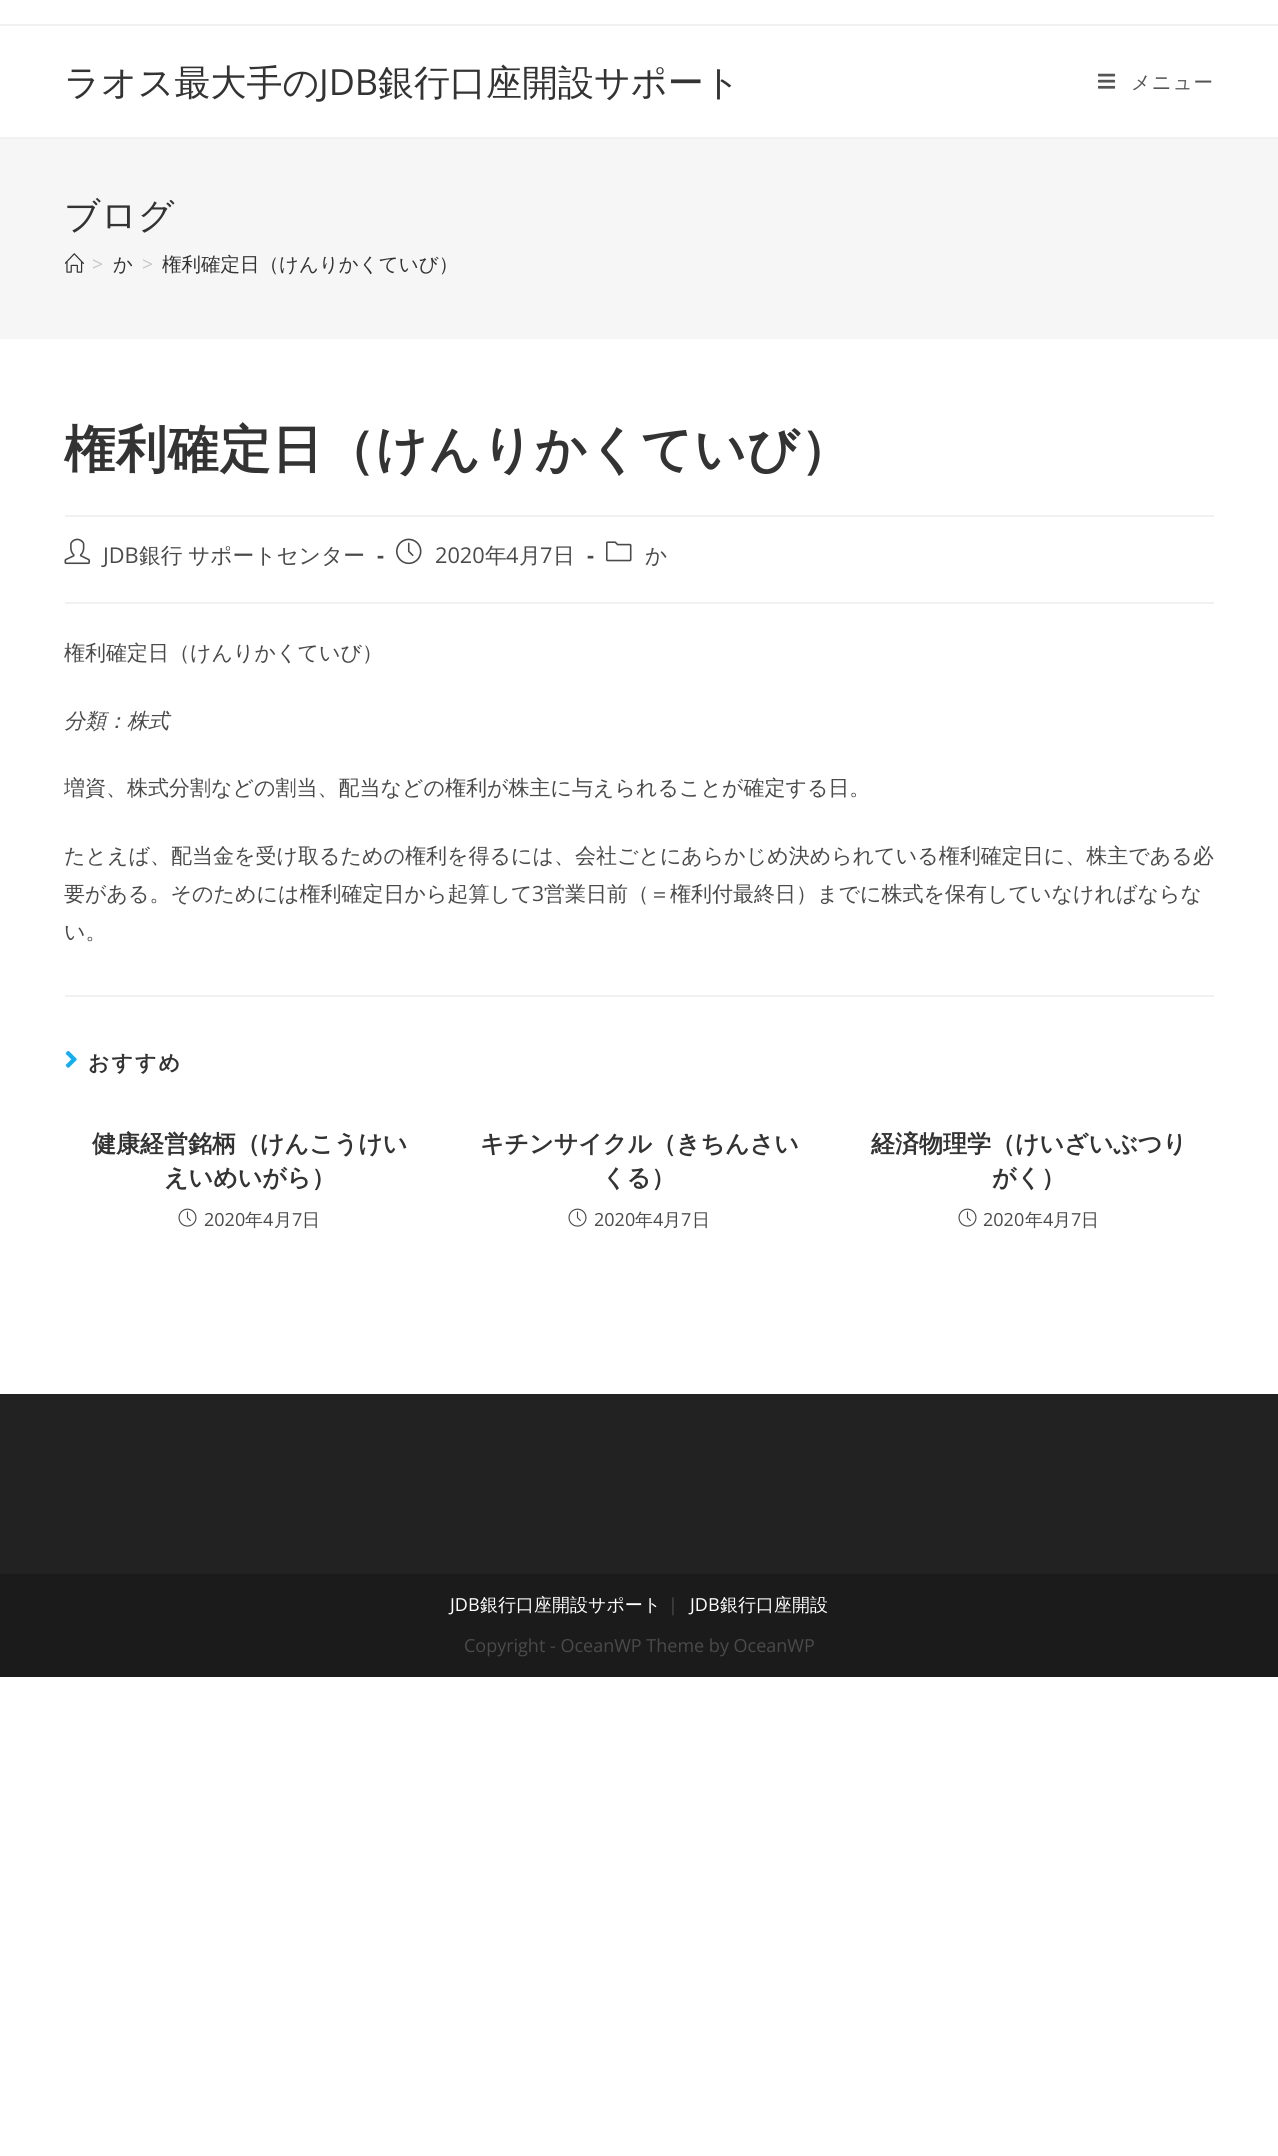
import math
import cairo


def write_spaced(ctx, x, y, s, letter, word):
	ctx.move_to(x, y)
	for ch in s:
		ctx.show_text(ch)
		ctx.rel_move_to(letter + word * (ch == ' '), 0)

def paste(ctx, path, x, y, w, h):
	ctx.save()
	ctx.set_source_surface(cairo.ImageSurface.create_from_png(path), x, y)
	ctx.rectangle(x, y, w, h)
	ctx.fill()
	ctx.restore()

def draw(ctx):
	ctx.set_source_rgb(1, 1, 1)
	ctx.paint()
	ctx.set_source_rgb(0.945, 0.945, 0.945)
	ctx.rectangle(0, 24, 1278, 2)
	ctx.fill()
	ctx.rectangle(0, 137, 1278, 2)
	ctx.fill()
	ctx.select_font_face('WenQuanYi Zen Hei Medium')
	ctx.set_font_size(36)
	ctx.set_source_rgb(0.2, 0.2, 0.2)
	ctx.move_to(64, 95)
	ctx.show_text('ラオス最大手の')
	ctx.select_font_face('Open Sans')
	ctx.move_to(319, 95)
	ctx.show_text('JDB')
	ctx.select_font_face('WenQuanYi Zen Hei Medium')
	ctx.move_to(378, 95)
	ctx.show_text('銀行口座開設サポート')
	paste(ctx, 'media/1.png', 1098, 73, 18, 16)
	ctx.set_font_size(19.5)
	ctx.set_source_rgb(0.333, 0.333, 0.333)
	write_spaced(ctx, 1131, 89, 'メニュー', 0.9, 0)
	ctx.set_source_rgb(0.961, 0.961, 0.961)
	ctx.rectangle(0, 139, 1278, 200)
	ctx.fill()
	ctx.set_font_size(36)
	ctx.set_source_rgb(0.2, 0.2, 0.2)
	ctx.move_to(64, 228)
	ctx.show_text('ブログ')
	paste(ctx, 'media/2.png', 65, 253, 19, 20)
	ctx.select_font_face('Open Sans')
	ctx.set_font_size(19.5)
	ctx.set_source_rgb(0.776, 0.776, 0.776)
	ctx.move_to(92, 271)
	ctx.show_text('>')
	ctx.select_font_face('WenQuanYi Zen Hei Medium')
	ctx.set_source_rgb(0.2, 0.2, 0.2)
	ctx.move_to(113, 271)
	ctx.show_text('か')
	ctx.select_font_face('Open Sans')
	ctx.set_source_rgb(0.776, 0.776, 0.776)
	ctx.move_to(142, 271)
	ctx.show_text('>')
	ctx.select_font_face('WenQuanYi Zen Hei Medium')
	ctx.set_source_rgb(0.2, 0.2, 0.2)
	ctx.move_to(162, 271)
	ctx.show_text('権利確定日（けんりかくていび）')
	ctx.set_source_rgb(0.945, 0.945, 0.945)
	ctx.rectangle(65, 515, 1149, 2)
	ctx.fill()
	ctx.select_font_face('WenQuanYi Zen Hei', cairo.FONT_SLANT_NORMAL, cairo.FONT_WEIGHT_BOLD)
	ctx.set_font_size(51)
	ctx.set_source_rgb(0.2, 0.2, 0.2)
	write_spaced(ctx, 64, 467, '権利確定日（けんりかくていび）', 0.9, 0)
	ctx.set_source_rgb(0.945, 0.945, 0.945)
	ctx.rectangle(65, 602, 1149, 2)
	ctx.fill()
	paste(ctx, 'media/3.png', 64, 538, 26, 27)
	ctx.select_font_face('Open Sans')
	ctx.set_font_size(21.75)
	ctx.set_source_rgb(0.29, 0.29, 0.29)
	ctx.move_to(103, 563)
	ctx.show_text('JDB')
	ctx.select_font_face('WenQuanYi Zen Hei Medium')
	write_spaced(ctx, 139, 563, '銀行 サポートセンター', 0, -1)
	ctx.select_font_face('Open Sans', cairo.FONT_SLANT_NORMAL, cairo.FONT_WEIGHT_BOLD)
	ctx.move_to(377, 563)
	ctx.show_text('-')
	paste(ctx, 'media/4.png', 396, 538, 26, 27)
	ctx.select_font_face('Open Sans')
	ctx.move_to(435, 563)
	ctx.show_text('2020')
	ctx.select_font_face('WenQuanYi Zen Hei Medium')
	ctx.move_to(485, 563)
	ctx.show_text('年')
	ctx.select_font_face('Open Sans')
	ctx.move_to(506, 563)
	ctx.show_text('4')
	ctx.select_font_face('WenQuanYi Zen Hei Medium')
	ctx.move_to(519, 563)
	ctx.show_text('月')
	ctx.select_font_face('Open Sans')
	ctx.move_to(540, 563)
	ctx.show_text('7')
	ctx.select_font_face('WenQuanYi Zen Hei Medium')
	ctx.move_to(553, 563)
	ctx.show_text('日')
	ctx.select_font_face('Open Sans', cairo.FONT_SLANT_NORMAL, cairo.FONT_WEIGHT_BOLD)
	ctx.move_to(587, 563)
	ctx.show_text('-')
	paste(ctx, 'media/5.png', 606, 541, 26, 21)
	ctx.select_font_face('WenQuanYi Zen Hei Medium')
	ctx.move_to(645, 563)
	ctx.show_text('か')
	ctx.set_font_size(21)
	ctx.move_to(64, 660)
	ctx.show_text('権利確定日（けんりかくていび）')
	ctx.select_font_face('WenQuanYi Zen Hei Medium', cairo.FONT_SLANT_ITALIC)
	ctx.move_to(64, 728)
	ctx.show_text('分類：株式')
	ctx.select_font_face('WenQuanYi Zen Hei Medium')
	for x, y, s in [
		(64, 795, '増資、株式分割などの割当、配当などの権利が株主に与えられることが確定する日。'),
		(64, 863, 'たとえば、配当金を受け取るための権利を得るには、会社ごとにあらかじめ決められている権利確定日に、株主である必'),
		(64, 901, '要がある。そのためには権利確定日から起算して'),
	]:
		ctx.move_to(x, y)
		ctx.show_text(s)
	ctx.select_font_face('Open Sans')
	ctx.move_to(532, 901)
	ctx.show_text('3')
	ctx.select_font_face('WenQuanYi Zen Hei Medium')
	ctx.move_to(544, 901)
	ctx.show_text('営業日前（＝権利付最終日）までに株式を保有していなければならな')
	ctx.move_to(64, 939)
	ctx.show_text('い。')
	ctx.set_source_rgb(0.945, 0.945, 0.945)
	ctx.rectangle(65, 995, 1149, 2)
	ctx.fill()
	paste(ctx, 'media/6.png', 65, 1051, 12, 17)
	ctx.select_font_face('WenQuanYi Zen Hei', cairo.FONT_SLANT_NORMAL, cairo.FONT_WEIGHT_BOLD)
	ctx.set_source_rgb(0.2, 0.2, 0.2)
	write_spaced(ctx, 88, 1070, 'おすすめ', 2, 0)
	ctx.set_font_size(24)
	ctx.move_to(92, 1152)
	ctx.show_text('健康経営銘柄（けんこうけい')
	ctx.move_to(164, 1186)
	ctx.show_text('えいめいがら）')
	paste(ctx, 'media/7.png', 178, 1208, 19, 19)
	ctx.select_font_face('Open Sans')
	ctx.set_font_size(18)
	ctx.set_source_rgb(0.29, 0.29, 0.29)
	ctx.move_to(204, 1226)
	ctx.show_text('2020')
	ctx.select_font_face('WenQuanYi Zen Hei Medium')
	ctx.move_to(245, 1226)
	ctx.show_text('年')
	ctx.select_font_face('Open Sans')
	ctx.move_to(263, 1226)
	ctx.show_text('4')
	ctx.select_font_face('WenQuanYi Zen Hei Medium')
	ctx.move_to(274, 1226)
	ctx.show_text('月')
	ctx.select_font_face('Open Sans')
	ctx.move_to(292, 1226)
	ctx.show_text('7')
	ctx.select_font_face('WenQuanYi Zen Hei Medium')
	ctx.move_to(302, 1226)
	ctx.show_text('日')
	ctx.select_font_face('WenQuanYi Zen Hei', cairo.FONT_SLANT_NORMAL, cairo.FONT_WEIGHT_BOLD)
	ctx.set_font_size(24)
	ctx.set_source_rgb(0.2, 0.2, 0.2)
	ctx.move_to(480, 1152)
	ctx.show_text('キチンサイクル（きちんさい')
	ctx.move_to(602, 1186)
	ctx.show_text('くる）')
	paste(ctx, 'media/7.png', 568, 1208, 19, 19)
	ctx.select_font_face('Open Sans')
	ctx.set_font_size(18)
	ctx.set_source_rgb(0.29, 0.29, 0.29)
	ctx.move_to(594, 1226)
	ctx.show_text('2020')
	ctx.select_font_face('WenQuanYi Zen Hei Medium')
	ctx.move_to(635, 1226)
	ctx.show_text('年')
	ctx.select_font_face('Open Sans')
	ctx.move_to(653, 1226)
	ctx.show_text('4')
	ctx.select_font_face('WenQuanYi Zen Hei Medium')
	ctx.move_to(663, 1226)
	ctx.show_text('月')
	ctx.select_font_face('Open Sans')
	ctx.move_to(681, 1226)
	ctx.show_text('7')
	ctx.select_font_face('WenQuanYi Zen Hei Medium')
	ctx.move_to(692, 1226)
	ctx.show_text('日')
	ctx.select_font_face('WenQuanYi Zen Hei', cairo.FONT_SLANT_NORMAL, cairo.FONT_WEIGHT_BOLD)
	ctx.set_font_size(24)
	ctx.set_source_rgb(0.2, 0.2, 0.2)
	ctx.move_to(871, 1152)
	ctx.show_text('経済物理学（けいざいぶつり')
	ctx.move_to(992, 1186)
	ctx.show_text('がく）')
	paste(ctx, 'media/7.png', 958, 1208, 19, 19)
	ctx.select_font_face('Open Sans')
	ctx.set_font_size(18)
	ctx.set_source_rgb(0.29, 0.29, 0.29)
	ctx.move_to(983, 1226)
	ctx.show_text('2020')
	ctx.select_font_face('WenQuanYi Zen Hei Medium')
	ctx.move_to(1025, 1226)
	ctx.show_text('年')
	ctx.select_font_face('Open Sans')
	ctx.move_to(1043, 1226)
	ctx.show_text('4')
	ctx.select_font_face('WenQuanYi Zen Hei Medium')
	ctx.move_to(1053, 1226)
	ctx.show_text('月')
	ctx.select_font_face('Open Sans')
	ctx.move_to(1071, 1226)
	ctx.show_text('7')
	ctx.select_font_face('WenQuanYi Zen Hei Medium')
	ctx.move_to(1081, 1226)
	ctx.show_text('日')
	ctx.set_source_rgb(0.133, 0.133, 0.133)
	ctx.rectangle(0, 1394, 1278, 180)
	ctx.fill()
	ctx.set_source_rgb(0.106, 0.106, 0.106)
	ctx.rectangle(0, 1574, 1278, 103)
	ctx.fill()
	ctx.select_font_face('Open Sans')
	ctx.set_source_rgb(1, 1, 1)
	ctx.move_to(450, 1611)
	ctx.show_text('JDB')
	ctx.select_font_face('WenQuanYi Zen Hei Medium')
	ctx.move_to(480, 1611)
	ctx.show_text('銀行口座開設サポート')
	ctx.select_font_face('Open Sans')
	ctx.set_source_rgb(0.29, 0.29, 0.29)
	ctx.move_to(668, 1611)
	ctx.show_text('|')
	ctx.set_source_rgb(1, 1, 1)
	ctx.move_to(690, 1611)
	ctx.show_text('JDB')
	ctx.select_font_face('WenQuanYi Zen Hei Medium')
	ctx.move_to(720, 1611)
	ctx.show_text('銀行口座開設')
	ctx.select_font_face('Open Sans')
	ctx.set_source_rgb(0.29, 0.29, 0.29)
	ctx.move_to(464, 1652)
	ctx.show_text('Copyright - OceanWP Theme by OceanWP')


surface = cairo.ImageSurface(cairo.FORMAT_RGB24, 1278, 2156)
ctx = cairo.Context(surface)
options = cairo.FontOptions()
options.set_hint_metrics(cairo.HINT_METRICS_OFF)
options.set_hint_style(cairo.HINT_STYLE_NONE)
ctx.set_font_options(options)
ctx.set_miter_limit(4)
draw(ctx)
surface.write_to_png('image.png')
